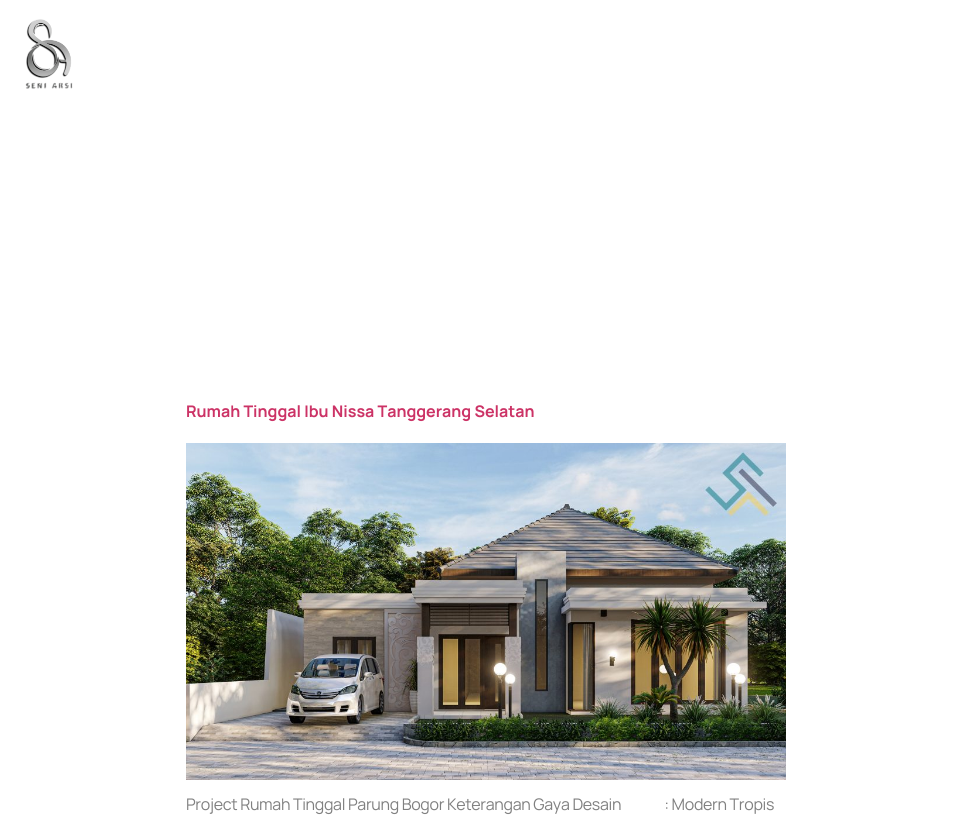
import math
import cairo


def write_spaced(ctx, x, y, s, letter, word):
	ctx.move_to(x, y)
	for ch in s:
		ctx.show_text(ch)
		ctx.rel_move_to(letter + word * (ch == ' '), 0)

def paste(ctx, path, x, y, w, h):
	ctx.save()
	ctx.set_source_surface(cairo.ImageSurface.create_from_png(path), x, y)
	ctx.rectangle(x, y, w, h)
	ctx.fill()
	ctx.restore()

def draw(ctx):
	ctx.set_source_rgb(1, 1, 1)
	ctx.paint()
	paste(ctx, 'media/1.png', 25, 19, 48, 70)
	ctx.select_font_face('Manrope', cairo.FONT_SLANT_NORMAL, cairo.FONT_WEIGHT_BOLD)
	ctx.set_font_size(16)
	ctx.set_source_rgb(0.8, 0.2, 0.4)
	ctx.move_to(186, 417)
	ctx.show_text('Rumah Tinggal Ibu Nissa Tanggerang Selatan')
	paste(ctx, 'media/2.png', 186, 443, 600, 337)
	ctx.select_font_face('Manrope')
	ctx.set_source_rgb(0.502, 0.502, 0.502)
	write_spaced(ctx, 186, 810, 'Project Rumah Tinggal Parung Bogor Keterangan Gaya Desain               : Modern Tropis', -0.32, 0)


surface = cairo.ImageSurface(cairo.FORMAT_RGB24, 972, 822)
ctx = cairo.Context(surface)
options = cairo.FontOptions()
options.set_hint_metrics(cairo.HINT_METRICS_OFF)
options.set_hint_style(cairo.HINT_STYLE_NONE)
ctx.set_font_options(options)
ctx.set_miter_limit(4)
draw(ctx)
surface.write_to_png('image.png')
